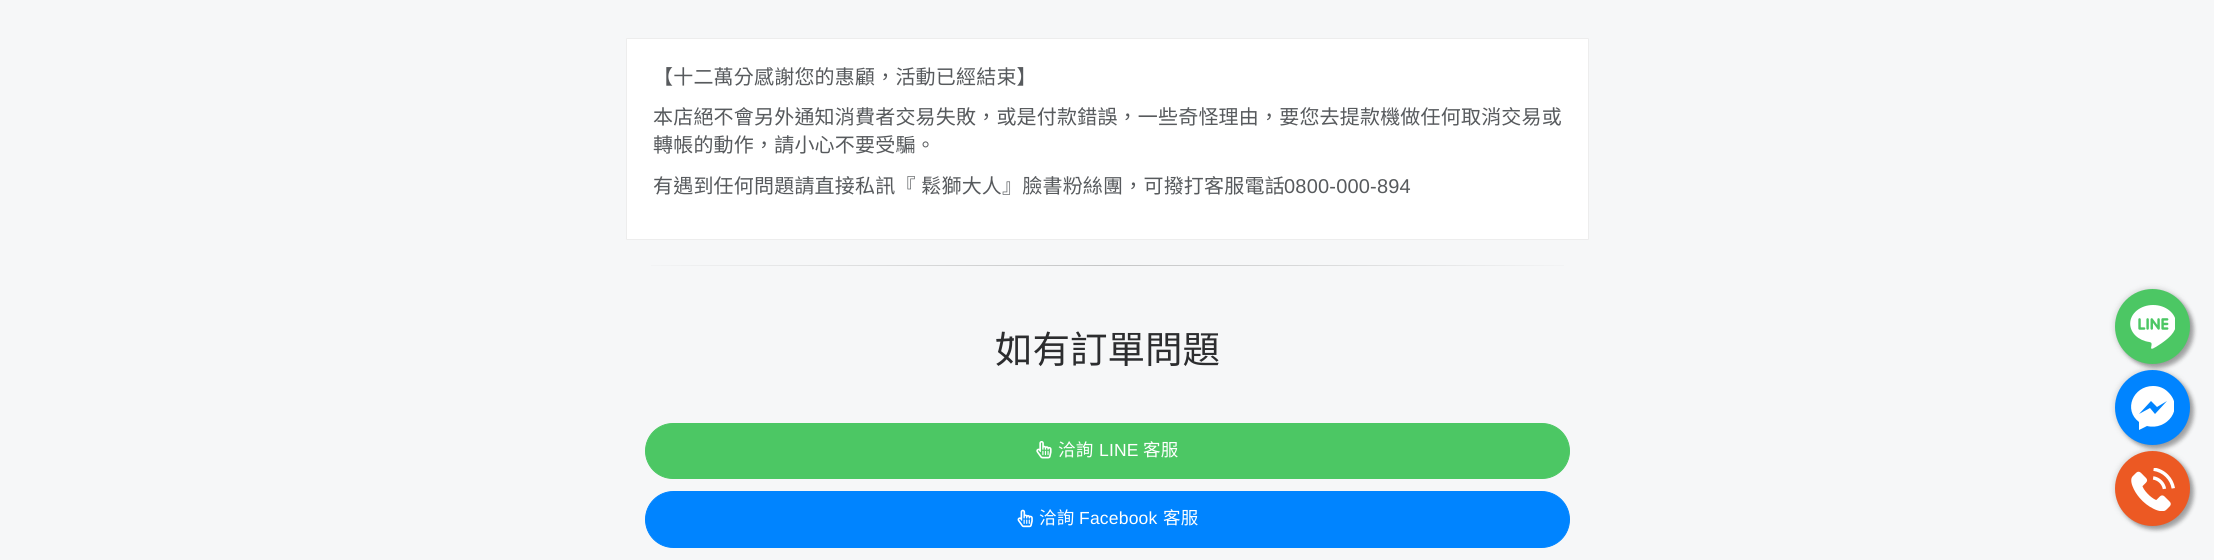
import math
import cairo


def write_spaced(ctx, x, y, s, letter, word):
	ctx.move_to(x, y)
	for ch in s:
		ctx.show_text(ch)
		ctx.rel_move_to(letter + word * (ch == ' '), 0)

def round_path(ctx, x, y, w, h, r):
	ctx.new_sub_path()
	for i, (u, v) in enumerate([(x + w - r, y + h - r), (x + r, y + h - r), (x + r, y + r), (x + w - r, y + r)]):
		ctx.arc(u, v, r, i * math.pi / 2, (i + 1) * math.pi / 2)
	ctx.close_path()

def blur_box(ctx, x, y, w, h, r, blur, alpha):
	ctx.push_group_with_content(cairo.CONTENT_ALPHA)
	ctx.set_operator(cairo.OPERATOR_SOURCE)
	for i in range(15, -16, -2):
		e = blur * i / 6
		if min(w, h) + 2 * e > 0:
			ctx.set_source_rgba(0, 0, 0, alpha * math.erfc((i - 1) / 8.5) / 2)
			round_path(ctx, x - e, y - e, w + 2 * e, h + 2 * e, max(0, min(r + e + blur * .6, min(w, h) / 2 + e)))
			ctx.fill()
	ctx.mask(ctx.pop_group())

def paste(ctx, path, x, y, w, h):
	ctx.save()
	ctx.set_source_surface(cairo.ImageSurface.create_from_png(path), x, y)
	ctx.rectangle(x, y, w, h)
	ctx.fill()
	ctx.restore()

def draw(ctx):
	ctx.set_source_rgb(0.961, 0.965, 0.969)
	ctx.paint()
	ctx.set_source_rgb(1, 1, 1)
	round_path(ctx, 626.5, 38.5, 962, 201, 0.5)
	ctx.fill_preserve()
	ctx.set_source_rgb(0.929, 0.929, 0.929)
	ctx.set_line_width(1)
	ctx.stroke()
	ctx.select_font_face('Noto Sans CJK TC')
	ctx.set_font_size(20)
	ctx.set_source_rgb(0.341, 0.353, 0.365)
	for x, y, s in [
		(653, 84, '【十二萬分感謝您的惠顧，活動已經結束】'),
		(653, 124, '本店絕不會另外通知消費者交易失敗，或是付款錯誤，一些奇怪理由，要您去提款機做任何取消交易或'),
		(653, 152, '轉帳的動作，請小心不要受騙。'),
	]:
		write_spaced(ctx, x, y, s, 0.2, 0)
	write_spaced(ctx, 653, 193, '有遇到任何問題請直接私訊『 鬆獅大人』臉書粉絲團，可撥打客服電話', 0.2, 1)
	ctx.select_font_face('Liberation Sans')
	write_spaced(ctx, 1284, 193, '0800-000-894', 0.2, 0)
	gradient = cairo.LinearGradient(626, 266, 1589, 266)
	gradient.add_color_stop_rgba(0, 0.961, 0.965, 0.969, 1)
	gradient.add_color_stop_rgba(0.5, 0.769, 0.773, 0.776, 1)
	gradient.add_color_stop_rgba(1, 0.961, 0.965, 0.969, 1)
	ctx.set_source(gradient)
	ctx.rectangle(651, 265, 913, 1)
	ctx.fill()
	ctx.select_font_face('Noto Sans CJK TC')
	ctx.set_font_size(37.5)
	ctx.set_source_rgb(0.173, 0.176, 0.184)
	ctx.move_to(995, 363)
	ctx.show_text('如有訂單問題')
	ctx.set_source_rgb(0.298, 0.78, 0.392)
	round_path(ctx, 645.5, 423.5, 924, 55, 27.5)
	ctx.fill_preserve()
	ctx.stroke()
	paste(ctx, 'media/1.png', 1036, 441, 16, 18)
	ctx.set_font_size(17.5)
	ctx.set_source_rgb(1, 1, 1)
	write_spaced(ctx, 1058, 456, '洽詢', 0.2, 0)
	ctx.select_font_face('Liberation Sans')
	write_spaced(ctx, 1099, 456, 'LINE', 0.2, 0)
	ctx.select_font_face('Noto Sans CJK TC')
	write_spaced(ctx, 1143, 456, '客服', 0.2, 0)
	ctx.set_source_rgb(0, 0.518, 1)
	round_path(ctx, 645.5, 491.5, 924, 56, 28)
	ctx.fill_preserve()
	ctx.stroke()
	paste(ctx, 'media/2.png', 1017, 509, 16, 19)
	ctx.set_source_rgb(1, 1, 1)
	write_spaced(ctx, 1039, 524, '洽詢', 0.2, 0)
	ctx.select_font_face('Liberation Sans')
	write_spaced(ctx, 1079, 524, 'Facebook', 0.2, 0)
	ctx.select_font_face('Noto Sans CJK TC')
	write_spaced(ctx, 1163, 524, '客服', 0.2, 0)
	ctx.set_source_rgb(0, 0, 0)
	blur_box(ctx, 2119, 293, 75, 75, 37.5, 2, 0.3)
	blur_box(ctx, 2115, 289, 75, 75, 37.5, 3, 0.2)
	ctx.set_source_rgb(0.298, 0.78, 0.392)
	ctx.arc(2152.5, 326.5, 37.5, 0, 2 * math.pi)
	ctx.fill()
	paste(ctx, 'media/3.png', 2130, 305, 45, 44)
	ctx.set_source_rgb(0, 0, 0)
	blur_box(ctx, 2119, 374, 75, 75, 37.5, 2, 0.3)
	blur_box(ctx, 2115, 370, 75, 75, 37.5, 3, 0.2)
	ctx.set_source_rgb(0, 0.518, 1)
	ctx.arc(2152.5, 407.5, 37.5, 0, 2 * math.pi)
	ctx.fill()
	ctx.save()
	ctx.rectangle(2131, 386, 43, 44)
	ctx.clip()
	ctx.set_source_rgb(1, 1, 1)
	ctx.new_path()
	ctx.move_to(2153, 386)
	ctx.curve_to(2133, 386, 2123, 410, 2139, 422)
	ctx.line_to(2139, 430)
	ctx.line_to(2147, 426)
	ctx.curve_to(2167, 431, 2185, 408, 2168, 392)
	ctx.curve_to(2164, 388, 2159, 386, 2153, 386)
	ctx.close_path()
	ctx.move_to(2155, 414)
	ctx.line_to(2150, 408)
	ctx.line_to(2139, 414)
	ctx.line_to(2151, 401)
	ctx.line_to(2157, 407)
	ctx.line_to(2167, 401)
	ctx.close_path()
	ctx.fill()
	ctx.restore()
	ctx.set_source_rgb(0, 0, 0)
	blur_box(ctx, 2119, 455, 75, 75, 37.5, 2, 0.3)
	blur_box(ctx, 2115, 451, 75, 75, 37.5, 3, 0.2)
	ctx.set_source_rgb(0.925, 0.349, 0.137)
	ctx.arc(2152.5, 488.5, 37.5, 0, 2 * math.pi)
	ctx.fill()
	paste(ctx, 'media/4.png', 2131, 468, 44, 43)


surface = cairo.ImageSurface(cairo.FORMAT_RGB24, 2214, 560)
ctx = cairo.Context(surface)
options = cairo.FontOptions()
options.set_hint_metrics(cairo.HINT_METRICS_OFF)
options.set_hint_style(cairo.HINT_STYLE_NONE)
ctx.set_font_options(options)
ctx.set_miter_limit(4)
draw(ctx)
surface.write_to_png('image.png')
